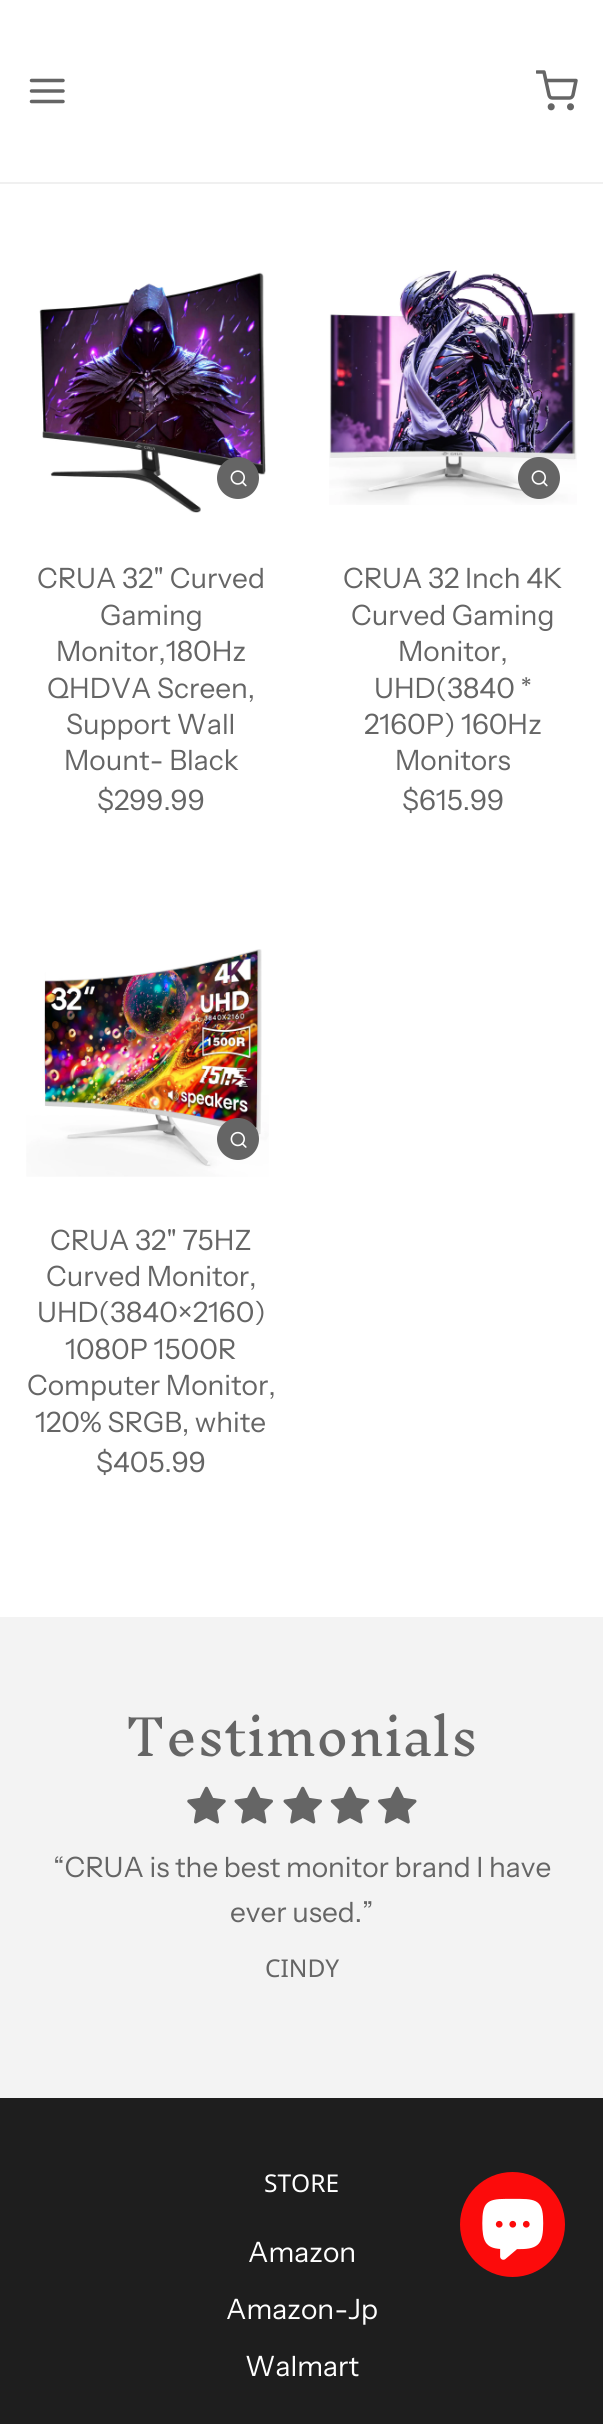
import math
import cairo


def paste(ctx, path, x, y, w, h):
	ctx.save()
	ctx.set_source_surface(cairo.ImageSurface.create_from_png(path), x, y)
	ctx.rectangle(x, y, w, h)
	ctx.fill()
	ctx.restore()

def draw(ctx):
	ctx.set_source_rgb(1, 1, 1)
	ctx.paint()
	ctx.set_source_rgb(0.941, 0.941, 0.941)
	ctx.rectangle(0, 182, 603, 2)
	ctx.fill()
	ctx.new_path()
	ctx.move_to(31.5, 91)
	ctx.line_to(63, 91)
	ctx.move_to(31.5, 80.5)
	ctx.line_to(63, 80.5)
	ctx.move_to(31.5, 101.5)
	ctx.line_to(63, 101.5)
	ctx.set_source_rgb(0.396, 0.396, 0.396)
	ctx.set_line_width(3.5)
	ctx.set_line_cap(cairo.LINE_CAP_ROUND)
	ctx.set_line_join(cairo.LINE_JOIN_ROUND)
	ctx.stroke()
	ctx.arc(551.2, 106.8, 1.8, 0, 2 * math.pi)
	ctx.set_line_cap(cairo.LINE_CAP_BUTT)
	ctx.set_line_join(cairo.LINE_JOIN_MITER)
	ctx.stroke()
	ctx.arc(570.5, 106.8, 1.8, 0, 2 * math.pi)
	ctx.stroke()
	ctx.save()
	ctx.rectangle(536, 70, 42, 42)
	ctx.clip()
	ctx.new_path()
	ctx.move_to(537, 72)
	ctx.line_to(544, 72)
	ctx.line_to(549, 95)
	ctx.curve_to(549.5, 97, 550.5, 98, 552.5, 98)
	ctx.line_to(569.5, 98)
	ctx.curve_to(571, 98, 572.5, 97, 573, 95)
	ctx.line_to(576, 80.5)
	ctx.line_to(546, 80.5)
	ctx.set_line_cap(cairo.LINE_CAP_ROUND)
	ctx.set_line_join(cairo.LINE_JOIN_ROUND)
	ctx.stroke()
	ctx.restore()
	paste(ctx, 'media/1.png', 39, 272, 227, 241)
	paste(ctx, 'media/2.png', 217, 457, 42, 42)
	ctx.select_font_face('Instrument Sans')
	ctx.set_font_size(28)
	for x, y, s in [
		(37, 588, 'CRUA 32" Curved'),
		(100, 625, 'Gaming'),
		(56, 661, 'Monitor,180Hz'),
		(47, 698, 'QHDVA Screen,'),
		(66, 734, 'Support Wall'),
		(64, 770, 'Mount- Black'),
		(97, 810, '$299.99'),
	]:
		ctx.move_to(x, y)
		ctx.show_text(s)
	paste(ctx, 'media/3.png', 329, 270, 248, 235)
	paste(ctx, 'media/4.png', 518, 457, 42, 42)
	for x, y, s in [
		(343, 588, 'CRUA 32 Inch 4K'),
		(351, 625, 'Curved Gaming'),
		(398, 661, 'Monitor,'),
		(374, 698, 'UHD(3840 *'),
		(364, 734, '2160P) 160Hz'),
		(395, 770, 'Monitors'),
		(402, 810, '$615.99'),
	]:
		ctx.move_to(x, y)
		ctx.show_text(s)
	paste(ctx, 'media/5.png', 26, 949, 243, 228)
	paste(ctx, 'media/6.png', 217, 1118, 42, 42)
	for x, y, s in [
		(50, 1250, 'CRUA 32" 75HZ'),
		(46, 1286, 'Curved Monitor,'),
		(37, 1322, 'UHD(3840×2160)'),
		(65, 1359, '1080P 1500R'),
		(27, 1395, 'Computer Monitor,'),
		(35, 1432, '120% SRGB, white'),
		(96, 1472, '$405.99'),
	]:
		ctx.move_to(x, y)
		ctx.show_text(s)
	ctx.set_source_rgb(0.953, 0.953, 0.953)
	ctx.rectangle(0, 1617, 603, 481)
	ctx.fill()
	ctx.select_font_face('Inknut Antiqua Light')
	ctx.set_font_size(49)
	ctx.set_source_rgb(0.396, 0.396, 0.396)
	ctx.move_to(125, 1756)
	ctx.show_text('Testimonials')
	paste(ctx, 'media/7.png', 187, 1786, 39, 38)
	paste(ctx, 'media/8.png', 234, 1786, 39, 38)
	paste(ctx, 'media/8.png', 283, 1786, 39, 38)
	paste(ctx, 'media/9.png', 330, 1786, 40, 38)
	paste(ctx, 'media/10.png', 378, 1786, 39, 38)
	ctx.select_font_face('Instrument Sans')
	ctx.set_font_size(28)
	ctx.move_to(53, 1877)
	ctx.show_text('“CRUA is the best monitor brand I have')
	ctx.move_to(230, 1922)
	ctx.show_text('ever used.”')
	ctx.select_font_face('Noto Sans')
	ctx.set_font_size(24.5)
	ctx.move_to(265, 1977)
	ctx.show_text('CINDY')
	ctx.set_source_rgb(0.118, 0.118, 0.118)
	ctx.rectangle(0, 2098, 603, 326)
	ctx.fill()
	ctx.set_source_rgb(1, 1, 1)
	ctx.move_to(264, 2192)
	ctx.show_text('STORE')
	ctx.select_font_face('Instrument Sans')
	ctx.set_font_size(28)
	for x, y, s in [
		(248, 2262, 'Amazon'),
		(226, 2319, 'Amazon-Jp'),
		(245, 2376, 'Walmart'),
	]:
		ctx.move_to(x, y)
		ctx.show_text(s)
	ctx.set_source_rgb(0.988, 0.043, 0.043)
	ctx.new_path()
	ctx.arc(512.5, 2224.5, 52.5, 0, 2 * math.pi)
	ctx.fill()
	paste(ctx, 'media/11.png', 482, 2198, 62, 62)


surface = cairo.ImageSurface(cairo.FORMAT_RGB24, 603, 2424)
ctx = cairo.Context(surface)
options = cairo.FontOptions()
options.set_hint_metrics(cairo.HINT_METRICS_OFF)
options.set_hint_style(cairo.HINT_STYLE_NONE)
ctx.set_font_options(options)
ctx.set_miter_limit(4)
draw(ctx)
surface.write_to_png('image.png')
